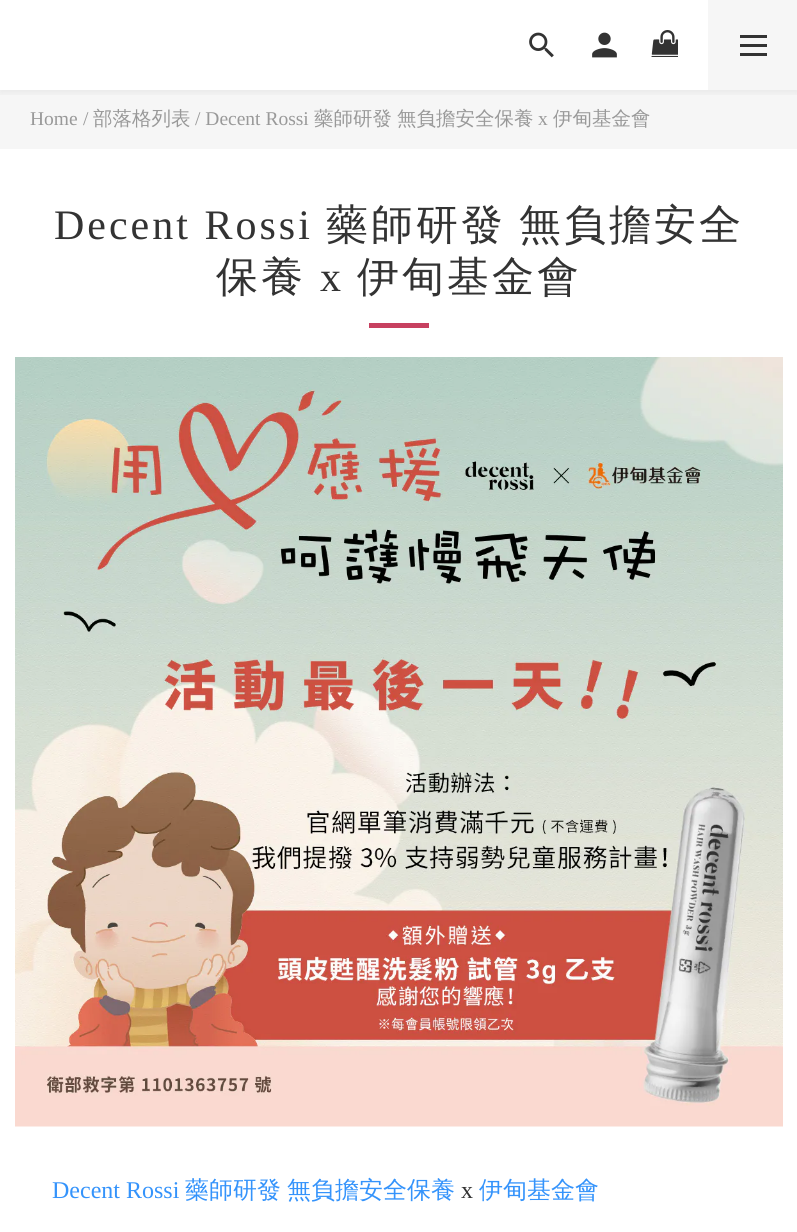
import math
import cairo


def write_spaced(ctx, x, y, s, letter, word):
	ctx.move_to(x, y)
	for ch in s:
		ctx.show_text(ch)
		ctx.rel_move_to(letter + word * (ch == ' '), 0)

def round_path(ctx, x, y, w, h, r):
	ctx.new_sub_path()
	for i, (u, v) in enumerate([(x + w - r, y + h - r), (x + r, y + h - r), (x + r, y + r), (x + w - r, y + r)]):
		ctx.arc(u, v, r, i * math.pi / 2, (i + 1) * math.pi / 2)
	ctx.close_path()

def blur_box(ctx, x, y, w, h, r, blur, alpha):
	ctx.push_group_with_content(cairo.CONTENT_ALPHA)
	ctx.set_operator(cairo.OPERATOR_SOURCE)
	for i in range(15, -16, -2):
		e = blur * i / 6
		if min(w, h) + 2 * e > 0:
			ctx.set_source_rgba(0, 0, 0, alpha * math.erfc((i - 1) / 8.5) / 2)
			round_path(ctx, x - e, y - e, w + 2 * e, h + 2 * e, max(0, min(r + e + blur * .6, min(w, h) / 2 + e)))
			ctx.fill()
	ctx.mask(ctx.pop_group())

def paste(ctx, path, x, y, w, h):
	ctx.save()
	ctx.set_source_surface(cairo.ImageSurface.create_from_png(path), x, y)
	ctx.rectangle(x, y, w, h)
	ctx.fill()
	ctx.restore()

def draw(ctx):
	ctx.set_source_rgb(1, 1, 1)
	ctx.paint()
	ctx.set_source_rgb(0.961, 0.961, 0.961)
	ctx.rectangle(0, 90, 797, 59)
	ctx.fill()
	ctx.save()
	ctx.rectangle(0, 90, 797, 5)
	ctx.clip()
	ctx.set_source_rgb(0, 0, 0)
	blur_box(ctx, 0, 3, 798, 90, 0, 4.5, 0.06)
	ctx.restore()
	paste(ctx, 'media/1.png', 529, 32, 25, 26)
	paste(ctx, 'media/2.png', 592, 32, 25, 26)
	paste(ctx, 'media/3.png', 651, 30, 27, 27)
	ctx.rectangle(708, 0, 89, 90)
	ctx.fill()
	ctx.set_source_rgb(0.2, 0.2, 0.2)
	ctx.rectangle(740, 44, 27, 3)
	ctx.rectangle(740, 35, 27, 3)
	ctx.rectangle(740, 53, 27, 3)
	ctx.fill()
	ctx.select_font_face('Liberation Serif')
	ctx.set_font_size(19.5)
	ctx.set_source_rgb(0.6, 0.6, 0.6)
	ctx.move_to(30, 125)
	ctx.show_text('Home')
	ctx.move_to(83, 125)
	ctx.show_text('/')
	ctx.select_font_face('WenQuanYi Zen Hei Medium')
	ctx.move_to(93, 125)
	ctx.show_text('部落格列表')
	ctx.select_font_face('Liberation Serif')
	ctx.move_to(195, 125)
	ctx.show_text('/ Decent Rossi')
	ctx.select_font_face('WenQuanYi Zen Hei Medium')
	ctx.move_to(314, 125)
	ctx.show_text('藥師研發')
	ctx.move_to(397, 125)
	ctx.show_text('無負擔安全保養')
	ctx.select_font_face('Liberation Serif')
	ctx.move_to(538, 125)
	ctx.show_text('x')
	ctx.select_font_face('WenQuanYi Zen Hei Medium')
	ctx.move_to(553, 125)
	ctx.show_text('伊甸基金會')
	ctx.select_font_face('Liberation Serif')
	ctx.set_font_size(42)
	ctx.set_source_rgb(0.2, 0.2, 0.2)
	write_spaced(ctx, 54, 239, 'Decent Rossi', 3, 0)
	ctx.select_font_face('WenQuanYi Zen Hei Medium')
	for x, y, s in [
		(326, 239, '藥師研發'),
		(519, 239, '無負擔安全'),
		(216, 291, '保養'),
	]:
		write_spaced(ctx, x, y, s, 3, 0)
	ctx.select_font_face('Liberation Serif')
	write_spaced(ctx, 320, 291, 'x', 3, 0)
	ctx.select_font_face('WenQuanYi Zen Hei Medium')
	write_spaced(ctx, 357, 291, '伊甸基金會', 3, 0)
	ctx.set_source_rgb(0.78, 0.251, 0.376)
	ctx.rectangle(369, 323, 60, 5)
	ctx.fill()
	paste(ctx, 'media/4.png', 15, 357, 768, 770)
	ctx.select_font_face('Liberation Serif')
	ctx.set_font_size(24)
	ctx.set_source_rgb(0.204, 0.576, 0.984)
	ctx.move_to(52, 1198)
	ctx.show_text('Decent Rossi')
	ctx.select_font_face('WenQuanYi Zen Hei Medium')
	ctx.move_to(185, 1198)
	ctx.show_text('藥師研發')
	ctx.move_to(287, 1198)
	ctx.show_text('無負擔安全保養')
	ctx.select_font_face('Liberation Serif')
	ctx.set_source_rgb(0.2, 0.2, 0.2)
	ctx.move_to(461, 1198)
	ctx.show_text('x')
	ctx.select_font_face('WenQuanYi Zen Hei Medium')
	ctx.set_source_rgb(0.204, 0.576, 0.984)
	ctx.move_to(479, 1198)
	ctx.show_text('伊甸基金會')


surface = cairo.ImageSurface(cairo.FORMAT_RGB24, 797, 1232)
ctx = cairo.Context(surface)
options = cairo.FontOptions()
options.set_hint_metrics(cairo.HINT_METRICS_OFF)
options.set_hint_style(cairo.HINT_STYLE_NONE)
ctx.set_font_options(options)
ctx.set_miter_limit(4)
draw(ctx)
surface.write_to_png('image.png')
